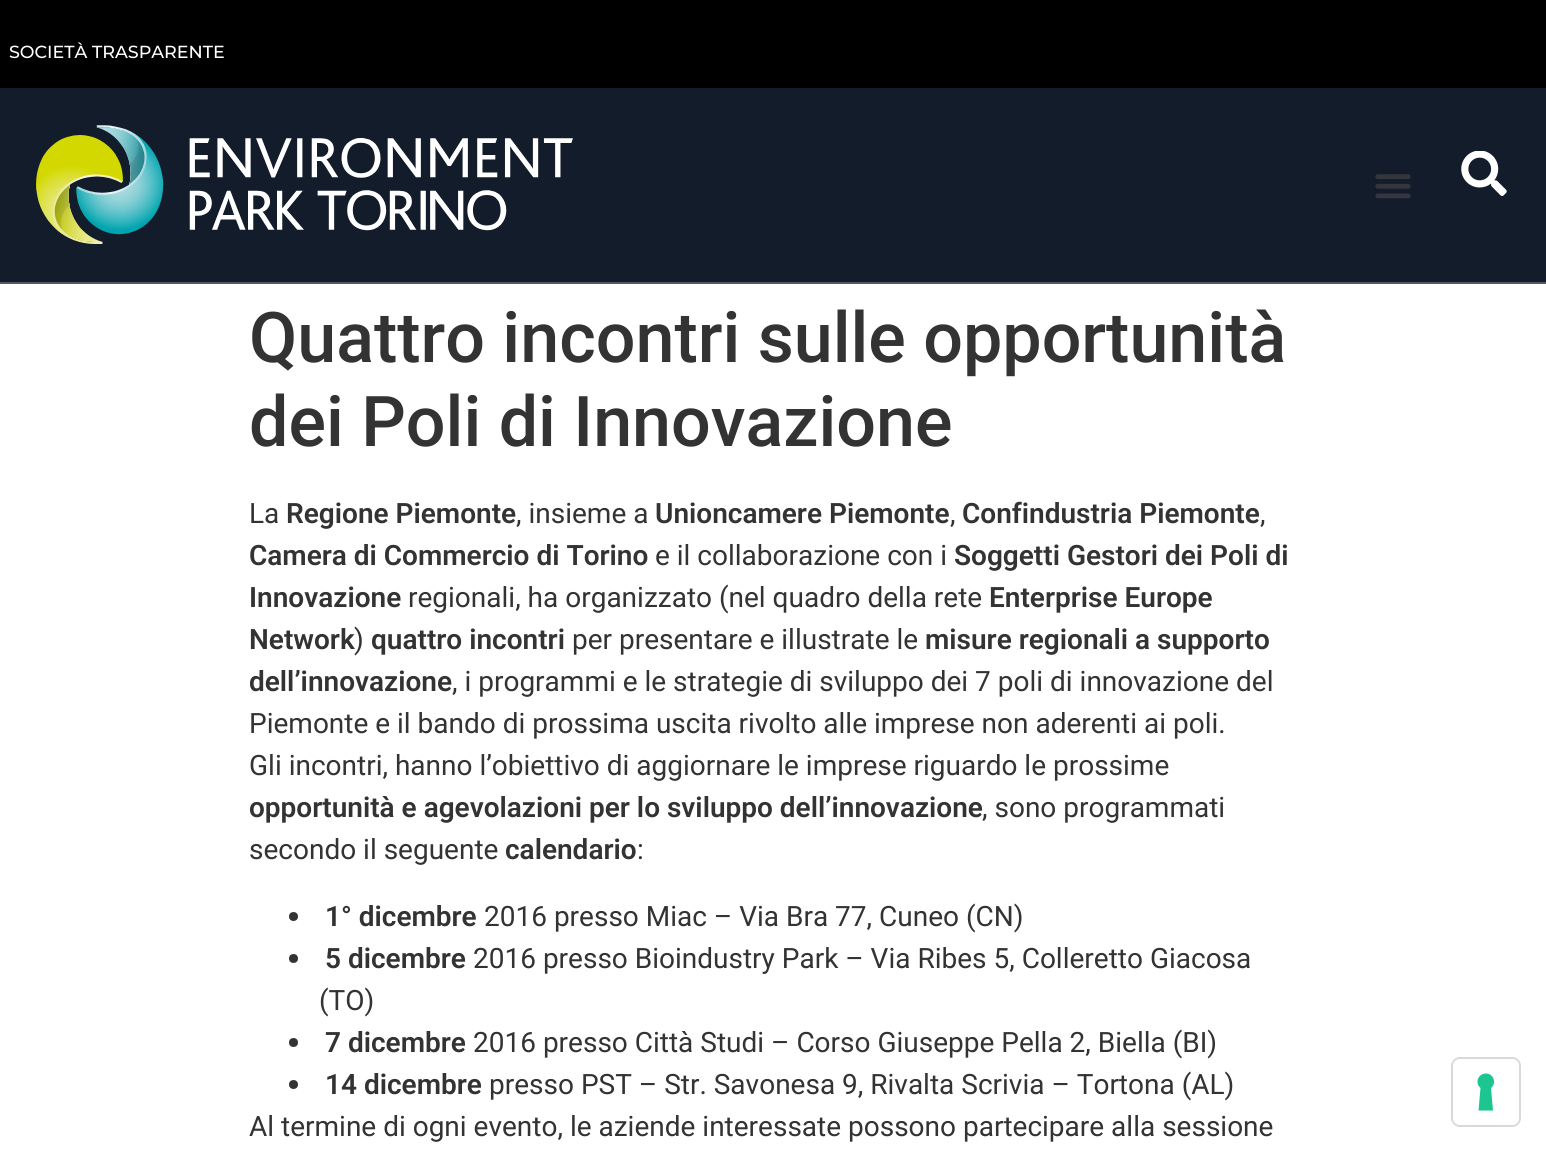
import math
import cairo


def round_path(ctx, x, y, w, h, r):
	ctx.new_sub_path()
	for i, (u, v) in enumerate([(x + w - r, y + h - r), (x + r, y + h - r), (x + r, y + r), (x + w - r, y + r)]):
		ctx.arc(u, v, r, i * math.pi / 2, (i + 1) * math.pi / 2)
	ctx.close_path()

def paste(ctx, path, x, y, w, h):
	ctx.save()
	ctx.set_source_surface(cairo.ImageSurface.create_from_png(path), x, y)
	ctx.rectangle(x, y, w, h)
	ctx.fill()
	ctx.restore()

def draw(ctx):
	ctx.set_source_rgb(1, 1, 1)
	ctx.paint()
	ctx.set_source_rgb(0, 0, 0)
	ctx.rectangle(0, 0, 1546, 88)
	ctx.fill()
	ctx.select_font_face('Montserrat Medium')
	ctx.set_font_size(17.5)
	ctx.set_source_rgb(1, 1, 1)
	ctx.move_to(9, 58)
	ctx.show_text('SOCIETÀ TRASPARENTE')
	ctx.set_source_rgb(0.078, 0.11, 0.169)
	ctx.rectangle(0, 88, 1546, 194)
	ctx.fill()
	ctx.set_source_rgb(0.325, 0.349, 0.392)
	ctx.rectangle(0, 282, 1546, 2)
	ctx.fill()
	paste(ctx, 'media/1.png', 36, 125, 537, 119)
	paste(ctx, 'media/2.png', 1375, 174, 36, 25)
	paste(ctx, 'media/3.png', 1461, 151, 46, 45)
	ctx.select_font_face('Roboto Medium')
	ctx.set_font_size(70)
	ctx.set_source_rgb(0.2, 0.2, 0.2)
	ctx.move_to(249, 362)
	ctx.show_text('Quattro incontri sulle opportunità')
	ctx.move_to(249, 446)
	ctx.show_text('dei Poli di Innovazione')
	ctx.select_font_face('Roboto')
	ctx.set_font_size(28)
	ctx.move_to(249, 523)
	ctx.show_text('La')
	ctx.select_font_face('Roboto SemiBold')
	ctx.move_to(286, 523)
	ctx.show_text('Regione Piemonte')
	ctx.select_font_face('Roboto')
	ctx.move_to(516, 523)
	ctx.show_text(', insieme a')
	ctx.select_font_face('Roboto SemiBold')
	ctx.move_to(655, 523)
	ctx.show_text('Unioncamere Piemonte')
	ctx.select_font_face('Roboto')
	ctx.move_to(950, 523)
	ctx.show_text(',')
	ctx.select_font_face('Roboto SemiBold')
	ctx.move_to(962, 523)
	ctx.show_text('Confindustria Piemonte')
	ctx.select_font_face('Roboto')
	ctx.move_to(1260, 523)
	ctx.show_text(',')
	ctx.select_font_face('Roboto SemiBold')
	ctx.move_to(249, 565)
	ctx.show_text('Camera di Commercio di Torino')
	ctx.select_font_face('Roboto')
	ctx.move_to(655, 565)
	ctx.show_text('e il collaborazione con i')
	ctx.select_font_face('Roboto SemiBold')
	ctx.move_to(954, 565)
	ctx.show_text('Soggetti Gestori dei Poli di')
	ctx.move_to(249, 607)
	ctx.show_text('Innovazione')
	ctx.select_font_face('Roboto')
	ctx.move_to(408, 607)
	ctx.show_text('regionali, ha organizzato (nel quadro della rete')
	ctx.select_font_face('Roboto SemiBold')
	ctx.move_to(989, 607)
	ctx.show_text('Enterprise Europe')
	ctx.move_to(249, 649)
	ctx.show_text('Network')
	ctx.select_font_face('Roboto')
	ctx.move_to(354, 649)
	ctx.show_text(')')
	ctx.select_font_face('Roboto SemiBold')
	ctx.move_to(371, 649)
	ctx.show_text('quattro incontri')
	ctx.select_font_face('Roboto')
	ctx.move_to(572, 649)
	ctx.show_text('per presentare e illustrate le')
	ctx.select_font_face('Roboto SemiBold')
	ctx.move_to(925, 649)
	ctx.show_text('misure regionali a supporto')
	ctx.move_to(249, 691)
	ctx.show_text('dell’innovazione')
	ctx.select_font_face('Roboto')
	for x, y, s in [
		(452, 691, ', i programmi e le strategie di sviluppo dei 7 poli di innovazione del'),
		(249, 733, 'Piemonte e il bando di prossima uscita rivolto alle imprese non aderenti ai poli.'),
		(249, 775, 'Gli incontri, hanno l’obiettivo di aggiornare le imprese riguardo le prossime'),
	]:
		ctx.move_to(x, y)
		ctx.show_text(s)
	ctx.select_font_face('Roboto SemiBold')
	ctx.move_to(249, 817)
	ctx.show_text('opportunità e agevolazioni per lo sviluppo dell’innovazione')
	ctx.select_font_face('Roboto')
	ctx.move_to(982, 817)
	ctx.show_text(', sono programmati')
	ctx.move_to(249, 859)
	ctx.show_text('secondo il seguente')
	ctx.select_font_face('Roboto SemiBold')
	ctx.move_to(505, 859)
	ctx.show_text('calendario')
	ctx.select_font_face('Roboto')
	ctx.move_to(637, 859)
	ctx.show_text(':')
	ctx.new_path()
	ctx.arc(293.5, 916.5, 4.5, 0, 2 * math.pi)
	ctx.fill()
	ctx.select_font_face('Roboto SemiBold')
	ctx.move_to(325, 926)
	ctx.show_text('1° dicembre')
	ctx.select_font_face('Roboto')
	ctx.move_to(484, 926)
	ctx.show_text('2016 presso Miac – Via Bra 77, Cuneo (CN)')
	ctx.new_path()
	ctx.arc(293.5, 958.5, 4.5, 0, 2 * math.pi)
	ctx.fill()
	ctx.select_font_face('Roboto SemiBold')
	ctx.move_to(325, 968)
	ctx.show_text('5 dicembre')
	ctx.select_font_face('Roboto')
	ctx.move_to(473, 968)
	ctx.show_text('2016 presso Bioindustry Park – Via Ribes 5, Colleretto Giacosa')
	ctx.move_to(319, 1010)
	ctx.show_text('(TO)')
	ctx.new_path()
	ctx.arc(293.5, 1042.5, 4.5, 0, 2 * math.pi)
	ctx.fill()
	ctx.select_font_face('Roboto SemiBold')
	ctx.move_to(325, 1052)
	ctx.show_text('7 dicembre')
	ctx.select_font_face('Roboto')
	ctx.move_to(473, 1052)
	ctx.show_text('2016 presso Città Studi – Corso Giuseppe Pella 2, Biella (BI)')
	ctx.new_path()
	ctx.arc(293.5, 1084.5, 4.5, 0, 2 * math.pi)
	ctx.fill()
	ctx.select_font_face('Roboto SemiBold')
	ctx.move_to(325, 1094)
	ctx.show_text('14 dicembre')
	ctx.select_font_face('Roboto')
	ctx.move_to(489, 1094)
	ctx.show_text('presso PST – Str. Savonesa 9, Rivalta Scrivia – Tortona (AL)')
	ctx.move_to(249, 1136)
	ctx.show_text('Al termine di ogni evento, le aziende interessate possono partecipare alla sessione')
	round_path(ctx, 1452, 1058, 68, 68, 8)
	ctx.set_source_rgb(0.851, 0.851, 0.851)
	ctx.stroke()
	ctx.set_source_rgb(1, 1, 1)
	round_path(ctx, 1453, 1059, 66, 66, 7)
	ctx.fill()
	ctx.set_source_rgb(0.11, 0.776, 0.569)
	ctx.set_fill_rule(cairo.FILL_RULE_EVEN_ODD)
	ctx.new_path()
	ctx.move_to(1486, 1073.5)
	ctx.curve_to(1493.5, 1073.5, 1497, 1083, 1491, 1088)
	ctx.line_to(1493, 1110.5)
	ctx.line_to(1478.5, 1110.5)
	ctx.line_to(1480.5, 1088)
	ctx.curve_to(1474.5, 1083, 1478, 1073.5, 1486, 1073.5)
	ctx.close_path()
	ctx.fill()


surface = cairo.ImageSurface(cairo.FORMAT_RGB24, 1546, 1153)
ctx = cairo.Context(surface)
options = cairo.FontOptions()
options.set_hint_metrics(cairo.HINT_METRICS_OFF)
options.set_hint_style(cairo.HINT_STYLE_NONE)
ctx.set_font_options(options)
ctx.set_miter_limit(4)
draw(ctx)
surface.write_to_png('image.png')
